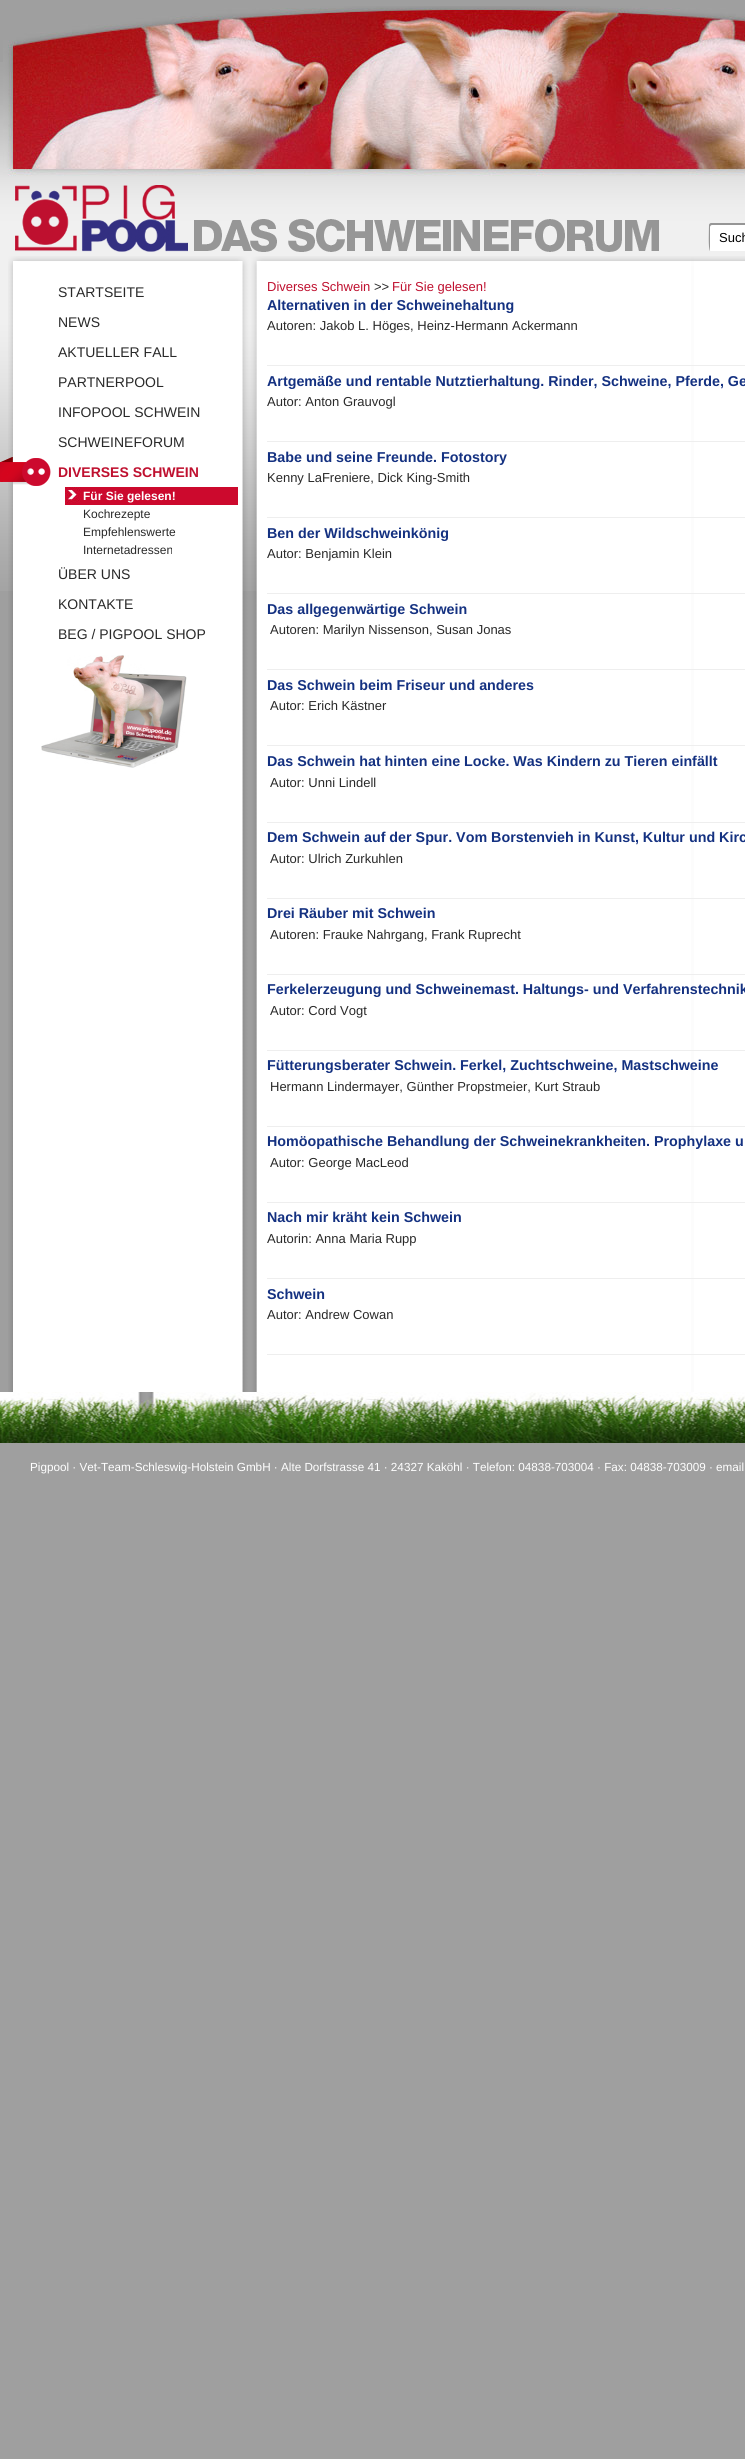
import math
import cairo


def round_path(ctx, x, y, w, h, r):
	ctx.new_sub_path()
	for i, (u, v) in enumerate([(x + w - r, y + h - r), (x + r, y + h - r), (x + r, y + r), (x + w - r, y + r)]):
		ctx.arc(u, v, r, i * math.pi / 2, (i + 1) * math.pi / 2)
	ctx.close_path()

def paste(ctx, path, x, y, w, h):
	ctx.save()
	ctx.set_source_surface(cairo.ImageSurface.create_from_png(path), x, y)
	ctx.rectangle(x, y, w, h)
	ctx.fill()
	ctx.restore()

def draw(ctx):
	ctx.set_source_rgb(0.624, 0.624, 0.624)
	ctx.paint()
	paste(ctx, 'media/1.png', 0, 62, 745, 529)
	paste(ctx, 'media/2.png', 3, 6, 742, 170)
	paste(ctx, 'media/3.png', 15, 185, 644, 67)
	ctx.set_source_rgb(1, 1, 1)
	round_path(ctx, 709, 223, 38, 28, 2)
	ctx.fill()
	ctx.set_source_rgb(0.588, 0.588, 0.588)
	ctx.new_path()
	ctx.move_to(712, 225)
	ctx.line_to(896, 225)
	ctx.line_to(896, 224)
	ctx.line_to(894, 223)
	ctx.line_to(711, 223)
	ctx.curve_to(710, 223, 709, 224, 709, 225)
	ctx.curve_to(709, 229, 708, 249, 710, 251)
	ctx.line_to(710, 227)
	ctx.curve_to(710, 226, 711, 225, 712, 225)
	ctx.close_path()
	ctx.fill()
	ctx.select_font_face('Liberation Sans')
	ctx.set_font_size(13)
	ctx.set_source_rgb(0, 0, 0)
	ctx.move_to(719, 242)
	ctx.show_text('Such')
	paste(ctx, 'media/4.png', 8, 256, 737, 11)
	paste(ctx, 'media/5.png', 8, 267, 737, 1125)
	ctx.set_font_size(14)
	ctx.set_source_rgb(0.161, 0.161, 0.161)
	for x, y, s in [
		(58, 297, 'STARTSEITE'),
		(58, 327, 'NEWS'),
		(58, 357, 'AKTUELLER FALL'),
		(58, 387, 'PARTNERPOOL'),
		(58, 417, 'INFOPOOL SCHWEIN'),
		(58, 447, 'SCHWEINEFORUM'),
	]:
		ctx.move_to(x, y)
		ctx.show_text(s)
	paste(ctx, 'media/6.png', 0, 457, 51, 29)
	ctx.select_font_face('Liberation Sans', cairo.FONT_SLANT_NORMAL, cairo.FONT_WEIGHT_BOLD)
	ctx.set_source_rgb(0.749, 0.063, 0.184)
	ctx.move_to(58, 477)
	ctx.show_text('DIVERSES SCHWEIN')
	ctx.set_source_rgb(0.8, 0.039, 0.176)
	ctx.rectangle(65, 487, 173, 18)
	ctx.fill()
	paste(ctx, 'media/7.png', 65, 487, 16, 16)
	ctx.set_font_size(12)
	ctx.set_source_rgb(1, 1, 1)
	ctx.move_to(83, 500)
	ctx.show_text('Für Sie gelesen!')
	ctx.select_font_face('Liberation Sans')
	ctx.set_source_rgb(0.161, 0.161, 0.161)
	for x, y, s in [
		(83, 518, 'Kochrezepte'),
		(83, 536, 'Empfehlenswerte'),
		(83, 554, 'Internetadressen'),
	]:
		ctx.move_to(x, y)
		ctx.show_text(s)
	ctx.set_font_size(14)
	for x, y, s in [
		(58, 579, 'ÜBER UNS'),
		(58, 609, 'KONTAKTE'),
		(58, 639, 'BEG / PIGPOOL SHOP'),
	]:
		ctx.move_to(x, y)
		ctx.show_text(s)
	paste(ctx, 'media/8.png', 41, 655, 146, 113)
	ctx.set_font_size(13)
	ctx.set_source_rgb(0.749, 0.063, 0.184)
	ctx.move_to(267, 291)
	ctx.show_text('Diverses Schwein')
	ctx.set_source_rgb(0.161, 0.161, 0.161)
	ctx.move_to(374, 291)
	ctx.show_text('>>')
	ctx.set_source_rgb(0.749, 0.063, 0.184)
	ctx.move_to(392, 291)
	ctx.show_text('Für Sie gelesen!')
	ctx.select_font_face('Liberation Sans', cairo.FONT_SLANT_NORMAL, cairo.FONT_WEIGHT_BOLD)
	ctx.set_font_size(14.3)
	ctx.set_source_rgb(0.082, 0.192, 0.506)
	ctx.move_to(267, 310)
	ctx.show_text('Alternativen in der Schweinehaltung')
	ctx.select_font_face('Liberation Sans')
	ctx.set_font_size(13)
	ctx.set_source_rgb(0.161, 0.161, 0.161)
	ctx.move_to(267, 330)
	ctx.show_text('Autoren: Jakob L. Höges, Heinz-Hermann Ackermann')
	ctx.set_source_rgb(0.933, 0.933, 0.933)
	ctx.rectangle(267, 365, 478, 1)
	ctx.fill()
	ctx.select_font_face('Liberation Sans', cairo.FONT_SLANT_NORMAL, cairo.FONT_WEIGHT_BOLD)
	ctx.set_font_size(14.3)
	ctx.set_source_rgb(0.082, 0.192, 0.506)
	ctx.move_to(267, 386)
	ctx.show_text('Artgemäße und rentable Nutztierhaltung. Rinder, Schweine, Pferde, Ge')
	ctx.select_font_face('Liberation Sans')
	ctx.set_font_size(13)
	ctx.set_source_rgb(0.161, 0.161, 0.161)
	ctx.move_to(267, 406)
	ctx.show_text('Autor: Anton Grauvogl')
	ctx.set_source_rgb(0.933, 0.933, 0.933)
	ctx.rectangle(267, 441, 478, 1)
	ctx.fill()
	ctx.select_font_face('Liberation Sans', cairo.FONT_SLANT_NORMAL, cairo.FONT_WEIGHT_BOLD)
	ctx.set_font_size(14.3)
	ctx.set_source_rgb(0.082, 0.192, 0.506)
	ctx.move_to(267, 462)
	ctx.show_text('Babe und seine Freunde. Fotostory')
	ctx.select_font_face('Liberation Sans')
	ctx.set_font_size(13)
	ctx.set_source_rgb(0.161, 0.161, 0.161)
	ctx.move_to(267, 482)
	ctx.show_text('Kenny LaFreniere, Dick King-Smith')
	ctx.set_source_rgb(0.933, 0.933, 0.933)
	ctx.rectangle(267, 517, 478, 1)
	ctx.fill()
	ctx.select_font_face('Liberation Sans', cairo.FONT_SLANT_NORMAL, cairo.FONT_WEIGHT_BOLD)
	ctx.set_font_size(14.3)
	ctx.set_source_rgb(0.082, 0.192, 0.506)
	ctx.move_to(267, 538)
	ctx.show_text('Ben der Wildschweinkönig')
	ctx.select_font_face('Liberation Sans')
	ctx.set_font_size(13)
	ctx.set_source_rgb(0.161, 0.161, 0.161)
	ctx.move_to(267, 558)
	ctx.show_text('Autor: Benjamin Klein')
	ctx.set_source_rgb(0.933, 0.933, 0.933)
	ctx.rectangle(267, 593, 478, 1)
	ctx.fill()
	ctx.select_font_face('Liberation Sans', cairo.FONT_SLANT_NORMAL, cairo.FONT_WEIGHT_BOLD)
	ctx.set_font_size(14.3)
	ctx.set_source_rgb(0.082, 0.192, 0.506)
	ctx.move_to(267, 614)
	ctx.show_text('Das allgegenwärtige Schwein')
	ctx.select_font_face('Liberation Sans')
	ctx.set_font_size(13)
	ctx.set_source_rgb(0.161, 0.161, 0.161)
	ctx.move_to(270, 634)
	ctx.show_text('Autoren: Marilyn Nissenson, Susan Jonas')
	ctx.set_source_rgb(0.933, 0.933, 0.933)
	ctx.rectangle(267, 669, 478, 1)
	ctx.fill()
	ctx.select_font_face('Liberation Sans', cairo.FONT_SLANT_NORMAL, cairo.FONT_WEIGHT_BOLD)
	ctx.set_font_size(14.3)
	ctx.set_source_rgb(0.082, 0.192, 0.506)
	ctx.move_to(267, 690)
	ctx.show_text('Das Schwein beim Friseur und anderes')
	ctx.select_font_face('Liberation Sans')
	ctx.set_font_size(13)
	ctx.set_source_rgb(0.161, 0.161, 0.161)
	ctx.move_to(270, 710)
	ctx.show_text('Autor: Erich Kästner')
	ctx.set_source_rgb(0.933, 0.933, 0.933)
	ctx.rectangle(267, 745, 478, 1)
	ctx.fill()
	ctx.select_font_face('Liberation Sans', cairo.FONT_SLANT_NORMAL, cairo.FONT_WEIGHT_BOLD)
	ctx.set_font_size(14.3)
	ctx.set_source_rgb(0.082, 0.192, 0.506)
	ctx.move_to(267, 766)
	ctx.show_text('Das Schwein hat hinten eine Locke. Was Kindern zu Tieren einfällt')
	ctx.select_font_face('Liberation Sans')
	ctx.set_font_size(13)
	ctx.set_source_rgb(0.161, 0.161, 0.161)
	ctx.move_to(270, 787)
	ctx.show_text('Autor: Unni Lindell')
	ctx.set_source_rgb(0.933, 0.933, 0.933)
	ctx.rectangle(267, 822, 478, 1)
	ctx.fill()
	ctx.select_font_face('Liberation Sans', cairo.FONT_SLANT_NORMAL, cairo.FONT_WEIGHT_BOLD)
	ctx.set_font_size(14.3)
	ctx.set_source_rgb(0.082, 0.192, 0.506)
	ctx.move_to(267, 842)
	ctx.show_text('Dem Schwein auf der Spur. Vom Borstenvieh in Kunst, Kultur und Kirc')
	ctx.select_font_face('Liberation Sans')
	ctx.set_font_size(13)
	ctx.set_source_rgb(0.161, 0.161, 0.161)
	ctx.move_to(270, 863)
	ctx.show_text('Autor: Ulrich Zurkuhlen')
	ctx.set_source_rgb(0.933, 0.933, 0.933)
	ctx.rectangle(267, 898, 478, 1)
	ctx.fill()
	ctx.select_font_face('Liberation Sans', cairo.FONT_SLANT_NORMAL, cairo.FONT_WEIGHT_BOLD)
	ctx.set_font_size(14.3)
	ctx.set_source_rgb(0.082, 0.192, 0.506)
	ctx.move_to(267, 918)
	ctx.show_text('Drei Räuber mit Schwein')
	ctx.select_font_face('Liberation Sans')
	ctx.set_font_size(13)
	ctx.set_source_rgb(0.161, 0.161, 0.161)
	ctx.move_to(270, 939)
	ctx.show_text('Autoren: Frauke Nahrgang, Frank Ruprecht')
	ctx.set_source_rgb(0.933, 0.933, 0.933)
	ctx.rectangle(267, 974, 478, 1)
	ctx.fill()
	ctx.select_font_face('Liberation Sans', cairo.FONT_SLANT_NORMAL, cairo.FONT_WEIGHT_BOLD)
	ctx.set_font_size(14.3)
	ctx.set_source_rgb(0.082, 0.192, 0.506)
	ctx.move_to(267, 994)
	ctx.show_text('Ferkelerzeugung und Schweinemast. Haltungs- und Verfahrenstechnik')
	ctx.select_font_face('Liberation Sans')
	ctx.set_font_size(13)
	ctx.set_source_rgb(0.161, 0.161, 0.161)
	ctx.move_to(270, 1015)
	ctx.show_text('Autor: Cord Vogt')
	ctx.set_source_rgb(0.933, 0.933, 0.933)
	ctx.rectangle(267, 1050, 478, 1)
	ctx.fill()
	ctx.select_font_face('Liberation Sans', cairo.FONT_SLANT_NORMAL, cairo.FONT_WEIGHT_BOLD)
	ctx.set_font_size(14.3)
	ctx.set_source_rgb(0.082, 0.192, 0.506)
	ctx.move_to(267, 1070)
	ctx.show_text('Fütterungsberater Schwein. Ferkel, Zuchtschweine, Mastschweine')
	ctx.select_font_face('Liberation Sans')
	ctx.set_font_size(13)
	ctx.set_source_rgb(0.161, 0.161, 0.161)
	ctx.move_to(270, 1091)
	ctx.show_text('Hermann Lindermayer, Günther Propstmeier, Kurt Straub')
	ctx.set_source_rgb(0.933, 0.933, 0.933)
	ctx.rectangle(267, 1126, 478, 1)
	ctx.fill()
	ctx.select_font_face('Liberation Sans', cairo.FONT_SLANT_NORMAL, cairo.FONT_WEIGHT_BOLD)
	ctx.set_font_size(14.3)
	ctx.set_source_rgb(0.082, 0.192, 0.506)
	ctx.move_to(267, 1146)
	ctx.show_text('Homöopathische Behandlung der Schweinekrankheiten. Prophylaxe u')
	ctx.select_font_face('Liberation Sans')
	ctx.set_font_size(13)
	ctx.set_source_rgb(0.161, 0.161, 0.161)
	ctx.move_to(270, 1167)
	ctx.show_text('Autor: George MacLeod')
	ctx.set_source_rgb(0.933, 0.933, 0.933)
	ctx.rectangle(267, 1202, 478, 1)
	ctx.fill()
	ctx.select_font_face('Liberation Sans', cairo.FONT_SLANT_NORMAL, cairo.FONT_WEIGHT_BOLD)
	ctx.set_font_size(14.3)
	ctx.set_source_rgb(0.082, 0.192, 0.506)
	ctx.move_to(267, 1222)
	ctx.show_text('Nach mir kräht kein Schwein')
	ctx.select_font_face('Liberation Sans')
	ctx.set_font_size(13)
	ctx.set_source_rgb(0.161, 0.161, 0.161)
	ctx.move_to(267, 1243)
	ctx.show_text('Autorin: Anna Maria Rupp')
	ctx.set_source_rgb(0.933, 0.933, 0.933)
	ctx.rectangle(267, 1278, 478, 1)
	ctx.fill()
	ctx.select_font_face('Liberation Sans', cairo.FONT_SLANT_NORMAL, cairo.FONT_WEIGHT_BOLD)
	ctx.set_font_size(14.3)
	ctx.set_source_rgb(0.082, 0.192, 0.506)
	ctx.move_to(267, 1299)
	ctx.show_text('Schwein')
	ctx.select_font_face('Liberation Sans')
	ctx.set_font_size(13)
	ctx.set_source_rgb(0.161, 0.161, 0.161)
	ctx.move_to(267, 1319)
	ctx.show_text('Autor: Andrew Cowan')
	ctx.set_source_rgb(0.933, 0.933, 0.933)
	ctx.rectangle(267, 1354, 478, 1)
	ctx.fill()
	paste(ctx, 'media/9.png', 0, 1392, 745, 51)
	ctx.set_font_size(11.7)
	ctx.set_source_rgb(1, 1, 1)
	ctx.move_to(30, 1471)
	ctx.show_text('Pigpool · Vet-Team-Schleswig-Holstein GmbH · Alte Dorfstrasse 41 · 24327 Kaköhl · Telefon: 04838-703004 · Fax: 04838-703009 · email:')


surface = cairo.ImageSurface(cairo.FORMAT_RGB24, 745, 2459)
ctx = cairo.Context(surface)
options = cairo.FontOptions()
options.set_hint_metrics(cairo.HINT_METRICS_OFF)
options.set_hint_style(cairo.HINT_STYLE_NONE)
ctx.set_font_options(options)
ctx.set_miter_limit(4)
draw(ctx)
surface.write_to_png('image.png')
